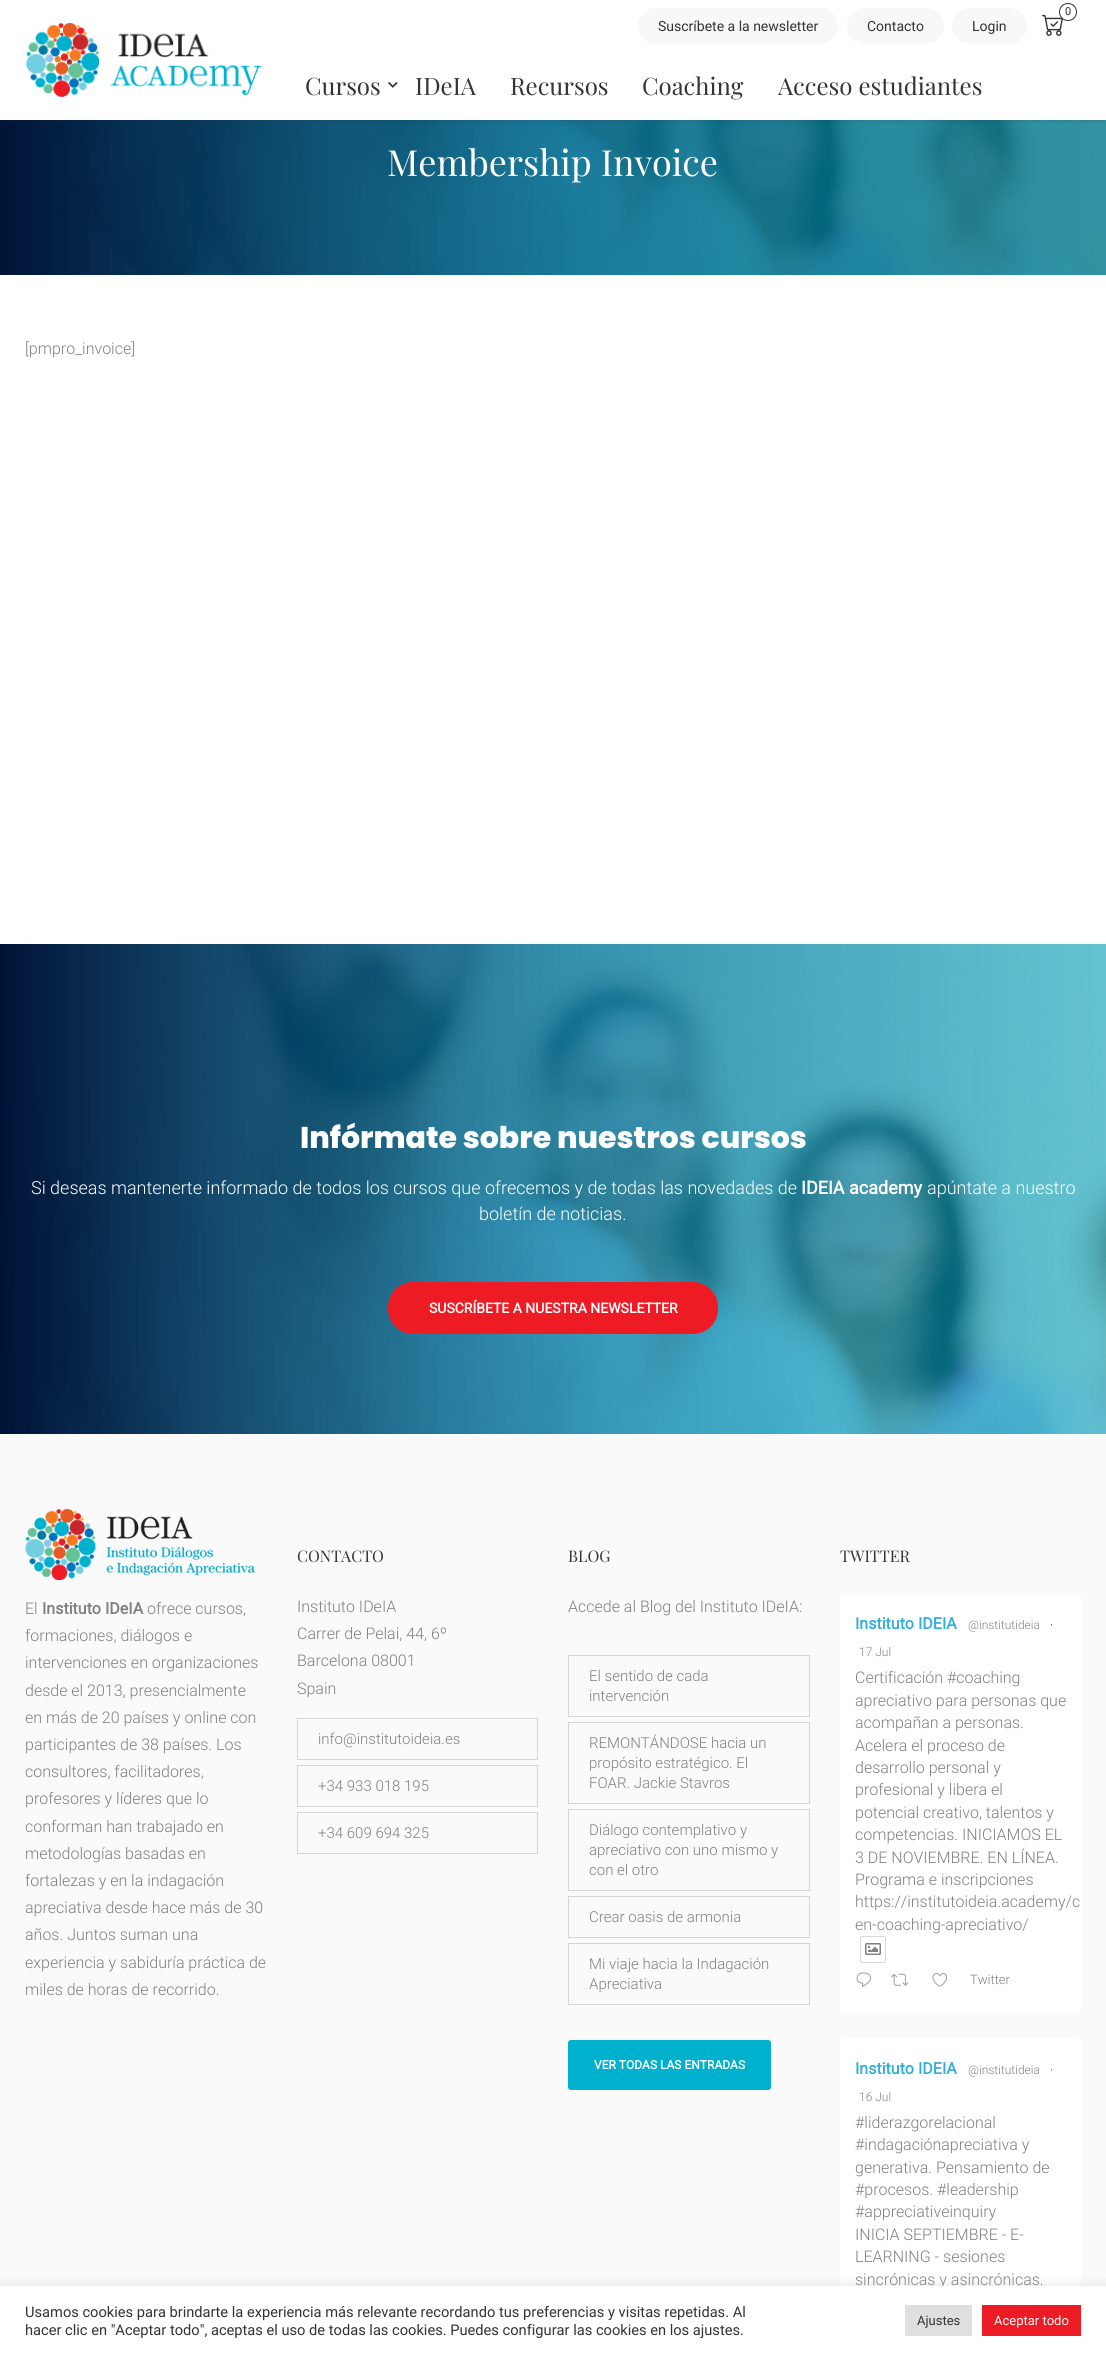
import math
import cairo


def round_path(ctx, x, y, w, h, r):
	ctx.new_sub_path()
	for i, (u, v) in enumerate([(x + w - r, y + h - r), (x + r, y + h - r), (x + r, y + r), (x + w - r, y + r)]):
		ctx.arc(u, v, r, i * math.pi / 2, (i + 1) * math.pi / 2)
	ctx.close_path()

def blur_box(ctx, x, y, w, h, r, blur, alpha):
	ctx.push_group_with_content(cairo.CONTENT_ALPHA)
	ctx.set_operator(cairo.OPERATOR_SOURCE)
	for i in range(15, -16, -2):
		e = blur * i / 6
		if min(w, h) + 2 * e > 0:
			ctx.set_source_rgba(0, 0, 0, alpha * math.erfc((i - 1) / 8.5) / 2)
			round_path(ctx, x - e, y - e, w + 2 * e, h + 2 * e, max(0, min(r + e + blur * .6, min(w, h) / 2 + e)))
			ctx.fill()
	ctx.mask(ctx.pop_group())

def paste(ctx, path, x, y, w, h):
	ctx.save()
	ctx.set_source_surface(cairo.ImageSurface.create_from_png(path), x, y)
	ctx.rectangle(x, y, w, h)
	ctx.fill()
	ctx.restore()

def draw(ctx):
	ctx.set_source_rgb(1, 1, 1)
	ctx.paint()
	paste(ctx, 'media/4.png', 0, 120, 1106, 155)
	ctx.set_source_rgb(0.165, 0.165, 0.165)
	blur_box(ctx, 2, 3, 1102, 116, 0, 2.5, 0.4)
	ctx.set_source_rgb(1, 1, 1)
	ctx.rectangle(0, 0, 1106, 120)
	ctx.fill()
	paste(ctx, 'media/1.png', 26, 23, 236, 74)
	paste(ctx, 'media/2.png', 1042, 14, 21, 22)
	ctx.arc(1068, 12, 8.5, 0, 2 * math.pi)
	ctx.fill_preserve()
	ctx.set_source_rgb(0.2, 0.2, 0.2)
	ctx.set_line_width(1)
	ctx.stroke()
	ctx.select_font_face('Roboto')
	ctx.set_font_size(11)
	ctx.move_to(1065, 15)
	ctx.show_text('0')
	ctx.set_source_rgb(0.969, 0.969, 0.969)
	round_path(ctx, 638, 8, 200, 36, 18)
	ctx.fill()
	ctx.set_font_size(14)
	ctx.set_source_rgb(0.2, 0.2, 0.2)
	ctx.move_to(658, 31)
	ctx.show_text('Suscríbete a la newsletter')
	ctx.set_source_rgb(0.969, 0.969, 0.969)
	round_path(ctx, 847, 8, 97, 36, 18)
	ctx.fill()
	ctx.set_source_rgb(0.2, 0.2, 0.2)
	ctx.move_to(867, 31)
	ctx.show_text('Contacto')
	ctx.set_source_rgb(0.969, 0.969, 0.969)
	round_path(ctx, 952, 8, 75, 36, 18)
	ctx.fill()
	ctx.set_source_rgb(0.2, 0.2, 0.2)
	ctx.move_to(972, 31)
	ctx.show_text('Login')
	ctx.select_font_face('Playfair Display')
	ctx.set_font_size(24)
	ctx.move_to(305, 95)
	ctx.show_text('Cursos')
	paste(ctx, 'media/3.png', 388, 82, 10, 6)
	for x, y, s in [
		(415, 95, 'IDeIA'),
		(510, 95, 'Recursos'),
		(642, 95, 'Coaching'),
		(778, 95, 'Acceso estudiantes'),
	]:
		ctx.move_to(x, y)
		ctx.show_text(s)
	ctx.set_font_size(36)
	ctx.set_source_rgb(1, 1, 1)
	ctx.move_to(387, 176)
	ctx.show_text('Membership Invoice')
	ctx.select_font_face('Roboto Light')
	ctx.set_font_size(16)
	ctx.set_source_rgb(0.502, 0.502, 0.502)
	ctx.move_to(25, 354)
	ctx.show_text('[pmpro_invoice]')
	paste(ctx, 'media/5.png', 0, 944, 1106, 490)
	ctx.select_font_face('Poppins ExtraBold')
	ctx.set_font_size(30)
	ctx.set_source_rgb(1, 1, 1)
	ctx.move_to(300, 1148)
	ctx.show_text('Infórmate sobre nuestros cursos')
	ctx.select_font_face('Roboto Light')
	ctx.set_font_size(18)
	ctx.move_to(31, 1194)
	ctx.show_text('Si deseas mantenerte informado de todos los cursos que ofrecemos y de todas las novedades de')
	ctx.select_font_face('Roboto', cairo.FONT_SLANT_NORMAL, cairo.FONT_WEIGHT_BOLD)
	ctx.move_to(801, 1194)
	ctx.show_text('IDEIA academy')
	ctx.select_font_face('Roboto Light')
	ctx.move_to(927, 1194)
	ctx.show_text('apúntate a nuestro')
	ctx.move_to(479, 1220)
	ctx.show_text('boletín de noticias.')
	ctx.set_source_rgb(0.929, 0.11, 0.141)
	round_path(ctx, 388.5, 1282.5, 329, 51, 24.5)
	ctx.fill_preserve()
	ctx.stroke()
	ctx.select_font_face('Roboto', cairo.FONT_SLANT_NORMAL, cairo.FONT_WEIGHT_BOLD)
	ctx.set_font_size(14)
	ctx.set_source_rgb(1, 1, 1)
	ctx.move_to(429, 1313)
	ctx.show_text('SUSCRÍBETE A NUESTRA NEWSLETTER')
	ctx.set_source_rgb(0.98, 0.98, 0.98)
	ctx.rectangle(0, 1434, 1106, 852)
	ctx.fill()
	paste(ctx, 'media/6.png', 25, 1509, 230, 71)
	ctx.select_font_face('Roboto Light')
	ctx.set_font_size(16)
	ctx.set_source_rgb(0.502, 0.502, 0.502)
	ctx.move_to(25, 1614)
	ctx.show_text('El')
	ctx.select_font_face('Roboto', cairo.FONT_SLANT_NORMAL, cairo.FONT_WEIGHT_BOLD)
	ctx.move_to(42, 1614)
	ctx.show_text('Instituto IDeIA')
	ctx.select_font_face('Roboto Light')
	for x, y, s in [
		(147, 1614, 'ofrece cursos,'),
		(25, 1641, 'formaciones, diálogos e'),
		(25, 1668, 'intervenciones en organizaciones'),
		(25, 1696, 'desde el 2013, presencialmente'),
		(25, 1723, 'en más de 20 países y online con'),
		(25, 1750, 'participantes de 38 países. Los'),
		(25, 1777, 'consultores, facilitadores,'),
		(25, 1804, 'profesores y líderes que lo'),
		(25, 1832, 'conforman han trabajado en'),
		(25, 1859, 'metodologías basadas en'),
		(25, 1886, 'fortalezas y en la indagación'),
		(25, 1913, 'apreciativa desde hace más de 30'),
		(25, 1940, 'años. Juntos suman una'),
		(25, 1968, 'experiencia y sabiduría práctica de'),
		(25, 1995, 'miles de horas de recorrido.'),
	]:
		ctx.move_to(x, y)
		ctx.show_text(s)
	ctx.select_font_face('Playfair Display')
	ctx.set_source_rgb(0.2, 0.2, 0.2)
	ctx.move_to(297, 1562)
	ctx.show_text('CONTACTO')
	ctx.select_font_face('Roboto Light')
	ctx.set_source_rgb(0.502, 0.502, 0.502)
	for x, y, s in [
		(297, 1612, 'Instituto IDeIA'),
		(297, 1639, 'Carrer de Pelai, 44, 6º'),
		(297, 1666, 'Barcelona 08001'),
		(297, 1694, 'Spain'),
	]:
		ctx.move_to(x, y)
		ctx.show_text(s)
	ctx.rectangle(297.5, 1718.5, 240, 41)
	ctx.set_source_rgb(0.835, 0.835, 0.835)
	ctx.stroke()
	ctx.set_font_size(15)
	ctx.set_source_rgb(0.502, 0.502, 0.502)
	ctx.move_to(318, 1744)
	ctx.show_text('info@institutoideia.es')
	ctx.rectangle(297.5, 1765.5, 240, 41)
	ctx.set_source_rgb(0.835, 0.835, 0.835)
	ctx.stroke()
	ctx.set_source_rgb(0.502, 0.502, 0.502)
	ctx.move_to(318, 1791)
	ctx.show_text('+34 933 018 195')
	ctx.rectangle(297.5, 1812.5, 240, 41)
	ctx.set_source_rgb(0.835, 0.835, 0.835)
	ctx.stroke()
	ctx.set_source_rgb(0.502, 0.502, 0.502)
	ctx.move_to(318, 1838)
	ctx.show_text('+34 609 694 325')
	ctx.select_font_face('Playfair Display')
	ctx.set_font_size(16)
	ctx.set_source_rgb(0.2, 0.2, 0.2)
	ctx.move_to(568, 1562)
	ctx.show_text('BLOG')
	ctx.select_font_face('Roboto Light')
	ctx.set_source_rgb(0.502, 0.502, 0.502)
	ctx.move_to(568, 1612)
	ctx.show_text('Accede al Blog del Instituto IDeIA:')
	ctx.rectangle(568.5, 1655.5, 241, 61)
	ctx.set_source_rgb(0.835, 0.835, 0.835)
	ctx.stroke()
	ctx.set_font_size(15)
	ctx.set_source_rgb(0.502, 0.502, 0.502)
	ctx.move_to(589, 1681)
	ctx.show_text('El sentido de cada')
	ctx.move_to(589, 1701)
	ctx.show_text('intervención')
	ctx.rectangle(568.5, 1722.5, 241, 81)
	ctx.set_source_rgb(0.835, 0.835, 0.835)
	ctx.stroke()
	ctx.set_source_rgb(0.502, 0.502, 0.502)
	for x, y, s in [
		(589, 1748, 'REMONTÁNDOSE hacia un'),
		(589, 1768, 'propósito estratégico. El'),
		(589, 1788, 'FOAR. Jackie Stavros'),
	]:
		ctx.move_to(x, y)
		ctx.show_text(s)
	ctx.rectangle(568.5, 1809.5, 241, 81)
	ctx.set_source_rgb(0.835, 0.835, 0.835)
	ctx.stroke()
	ctx.set_source_rgb(0.502, 0.502, 0.502)
	for x, y, s in [
		(589, 1835, 'Diálogo contemplativo y'),
		(589, 1855, 'apreciativo con uno mismo y'),
		(589, 1875, 'con el otro'),
	]:
		ctx.move_to(x, y)
		ctx.show_text(s)
	ctx.rectangle(568.5, 1896.5, 241, 41)
	ctx.set_source_rgb(0.835, 0.835, 0.835)
	ctx.stroke()
	ctx.set_source_rgb(0.502, 0.502, 0.502)
	ctx.move_to(589, 1922)
	ctx.show_text('Crear oasis de armonia')
	ctx.rectangle(568.5, 1943.5, 241, 61)
	ctx.set_source_rgb(0.835, 0.835, 0.835)
	ctx.stroke()
	ctx.set_source_rgb(0.502, 0.502, 0.502)
	ctx.move_to(589, 1969)
	ctx.show_text('Mi viaje hacia la Indagación')
	ctx.move_to(589, 1989)
	ctx.show_text('Apreciativa')
	ctx.set_source_rgb(0, 0.694, 0.804)
	round_path(ctx, 568.5, 2040.5, 202, 49, 2.5)
	ctx.fill_preserve()
	ctx.stroke()
	ctx.select_font_face('Roboto', cairo.FONT_SLANT_NORMAL, cairo.FONT_WEIGHT_BOLD)
	ctx.set_font_size(12)
	ctx.set_source_rgb(1, 1, 1)
	ctx.move_to(594, 2069)
	ctx.show_text('VER TODAS LAS ENTRADAS')
	ctx.select_font_face('Playfair Display')
	ctx.set_font_size(16)
	ctx.set_source_rgb(0.2, 0.2, 0.2)
	ctx.move_to(840, 1562)
	ctx.show_text('TWITTER')
	ctx.set_source_rgb(1, 1, 1)
	round_path(ctx, 840, 1593, 241, 420, 5)
	ctx.fill()
	ctx.select_font_face('Roboto', cairo.FONT_SLANT_NORMAL, cairo.FONT_WEIGHT_BOLD)
	ctx.set_source_rgb(0.204, 0.682, 0.859)
	ctx.move_to(855, 1629)
	ctx.show_text('Instituto IDEIA')
	ctx.select_font_face('Roboto Light')
	ctx.set_font_size(12)
	ctx.set_source_rgb(0.502, 0.502, 0.502)
	ctx.move_to(968, 1629)
	ctx.show_text('@institutideia')
	ctx.set_source_rgb(0, 0, 0)
	ctx.move_to(1050, 1629)
	ctx.show_text('·')
	ctx.set_source_rgb(0.502, 0.502, 0.502)
	ctx.move_to(859, 1656)
	ctx.show_text('17 Jul')
	ctx.set_font_size(16)
	for x, y, s in [
		(855, 1683, 'Certificación #coaching'),
		(855, 1706, 'apreciativo para personas que'),
		(855, 1728, 'acompañan a personas.'),
		(855, 1751, 'Acelera el proceso de'),
		(855, 1773, 'desarrollo personal y'),
		(855, 1795, 'profesional y libera el'),
		(855, 1818, 'potencial creativo, talentos y'),
		(855, 1840, 'competencias. INICIAMOS EL'),
		(855, 1863, '3 DE NOVIEMBRE. EN LÍNEA.'),
		(855, 1885, 'Programa e inscripciones'),
		(855, 1907, 'https://institutoideia.academy/c'),
		(855, 1930, 'en-coaching-apreciativo/'),
	]:
		ctx.move_to(x, y)
		ctx.show_text(s)
	round_path(ctx, 860.5, 1936.5, 25, 26, 1.5)
	ctx.set_source_rgb(0.851, 0.851, 0.851)
	ctx.stroke()
	paste(ctx, 'media/7.png', 865, 1943, 16, 12)
	paste(ctx, 'media/8.png', 856, 1972, 15, 15)
	paste(ctx, 'media/9.png', 891, 1973, 18, 13)
	paste(ctx, 'media/10.png', 932, 1972, 16, 15)
	ctx.set_font_size(13)
	ctx.set_source_rgb(0.502, 0.502, 0.502)
	ctx.move_to(970, 1984)
	ctx.show_text('Twitter')
	ctx.set_source_rgb(1, 1, 1)
	round_path(ctx, 840, 2038, 241, 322, 5)
	ctx.fill()
	ctx.select_font_face('Roboto', cairo.FONT_SLANT_NORMAL, cairo.FONT_WEIGHT_BOLD)
	ctx.set_font_size(16)
	ctx.set_source_rgb(0.204, 0.682, 0.859)
	ctx.move_to(855, 2074)
	ctx.show_text('Instituto IDEIA')
	ctx.select_font_face('Roboto Light')
	ctx.set_font_size(12)
	ctx.set_source_rgb(0.502, 0.502, 0.502)
	ctx.move_to(968, 2074)
	ctx.show_text('@institutideia')
	ctx.set_source_rgb(0, 0, 0)
	ctx.move_to(1050, 2074)
	ctx.show_text('·')
	ctx.set_source_rgb(0.502, 0.502, 0.502)
	ctx.move_to(859, 2101)
	ctx.show_text('16 Jul')
	ctx.set_font_size(16)
	for x, y, s in [
		(855, 2128, '#liderazgorelacional'),
		(855, 2150, '#indagaciónapreciativa y'),
		(855, 2173, 'generativa. Pensamiento de'),
		(855, 2195, '#procesos. #leadership'),
		(855, 2217, '#appreciativeinquiry'),
		(855, 2240, 'INICIA SEPTIEMBRE - E-'),
		(855, 2262, 'LEARNING - sesiones'),
		(855, 2285, 'sincrónicas y asincrónicas.'),
	]:
		ctx.move_to(x, y)
		ctx.show_text(s)
	ctx.set_source_rgb(0.675, 0.671, 0.671)
	blur_box(ctx, 0, 2285, 1106, 69, 0, 5, 0.3)
	ctx.set_source_rgb(1, 1, 1)
	ctx.rectangle(0, 2286, 1106, 69)
	ctx.fill()
	ctx.select_font_face('Roboto')
	ctx.set_font_size(14.65)
	ctx.set_source_rgb(0.2, 0.2, 0.2)
	ctx.move_to(25, 2317)
	ctx.show_text('Usamos cookies para brindarte la experiencia más relevante recordando tus preferencias y visitas repetidas. Al')
	ctx.move_to(25, 2335)
	ctx.show_text('hacer clic en "Aceptar todo", aceptas el uso de todas las cookies. Puedes configurar las cookies en los ajustes.')
	ctx.set_source_rgb(0.871, 0.875, 0.878)
	ctx.rectangle(905, 2305, 67, 31)
	ctx.fill()
	ctx.set_font_size(13)
	ctx.set_source_rgb(0.2, 0.2, 0.2)
	ctx.move_to(917, 2325)
	ctx.show_text('Ajustes')
	ctx.set_source_rgb(0.929, 0.11, 0.141)
	ctx.rectangle(982, 2305, 99, 31)
	ctx.fill()
	ctx.set_source_rgb(1, 1, 1)
	ctx.move_to(994, 2325)
	ctx.show_text('Aceptar todo')


surface = cairo.ImageSurface(cairo.FORMAT_RGB24, 1106, 2355)
ctx = cairo.Context(surface)
options = cairo.FontOptions()
options.set_hint_metrics(cairo.HINT_METRICS_OFF)
options.set_hint_style(cairo.HINT_STYLE_NONE)
ctx.set_font_options(options)
ctx.set_miter_limit(4)
draw(ctx)
surface.write_to_png('image.png')
